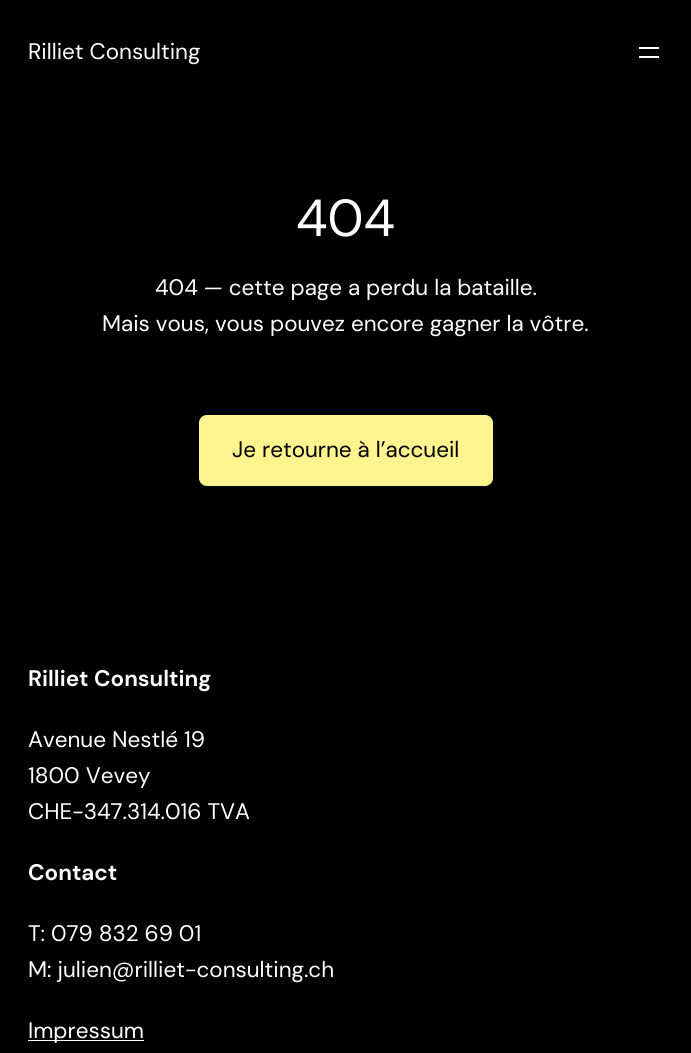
import math
import cairo


def round_path(ctx, x, y, w, h, r):
	ctx.new_sub_path()
	for i, (u, v) in enumerate([(x + w - r, y + h - r), (x + r, y + h - r), (x + r, y + r), (x + w - r, y + r)]):
		ctx.arc(u, v, r, i * math.pi / 2, (i + 1) * math.pi / 2)
	ctx.close_path()

def draw(ctx):
	ctx.set_source_rgb(0, 0, 0)
	ctx.paint()
	ctx.select_font_face('DM Sans')
	ctx.set_font_size(22.5)
	ctx.set_source_rgb(1, 1, 1)
	ctx.move_to(28, 59)
	ctx.show_text('Rilliet Consulting')
	ctx.rectangle(639, 47, 20, 2)
	ctx.fill()
	ctx.rectangle(639, 56, 20, 2)
	ctx.fill()
	ctx.set_font_size(52)
	ctx.move_to(296, 236)
	ctx.show_text('404')
	ctx.set_font_size(22.5)
	ctx.move_to(155, 295)
	ctx.show_text('404 — cette page a perdu la bataille.')
	ctx.move_to(102, 331)
	ctx.show_text('Mais vous, vous pouvez encore gagner la vôtre.')
	ctx.set_source_rgb(1, 0.957, 0.553)
	round_path(ctx, 199.5, 415.5, 293, 70, 7.5)
	ctx.fill_preserve()
	ctx.set_line_width(1)
	ctx.stroke()
	ctx.set_source_rgb(0, 0, 0)
	ctx.move_to(232, 457)
	ctx.show_text('Je retourne à l’accueil')
	ctx.select_font_face('DM Sans', cairo.FONT_SLANT_NORMAL, cairo.FONT_WEIGHT_BOLD)
	ctx.set_source_rgb(1, 1, 1)
	ctx.move_to(28, 686)
	ctx.show_text('Rilliet Consulting')
	ctx.select_font_face('DM Sans')
	for x, y, s in [
		(28, 747, 'Avenue Nestlé 19'),
		(28, 783, '1800 Vevey'),
		(28, 819, 'CHE-347.314.016 TVA'),
	]:
		ctx.move_to(x, y)
		ctx.show_text(s)
	ctx.select_font_face('DM Sans', cairo.FONT_SLANT_NORMAL, cairo.FONT_WEIGHT_BOLD)
	ctx.move_to(28, 880)
	ctx.show_text('Contact')
	ctx.select_font_face('DM Sans')
	ctx.move_to(28, 941)
	ctx.show_text('T: 079 832 69 01')
	ctx.move_to(28, 977)
	ctx.show_text('M: julien@rilliet-consulting.ch')
	ctx.rectangle(28, 1040, 116, 1)
	ctx.fill()
	ctx.move_to(28, 1038)
	ctx.show_text('Impressum')


surface = cairo.ImageSurface(cairo.FORMAT_RGB24, 691, 1053)
ctx = cairo.Context(surface)
options = cairo.FontOptions()
options.set_hint_metrics(cairo.HINT_METRICS_OFF)
options.set_hint_style(cairo.HINT_STYLE_NONE)
ctx.set_font_options(options)
ctx.set_miter_limit(4)
draw(ctx)
surface.write_to_png('image.png')
